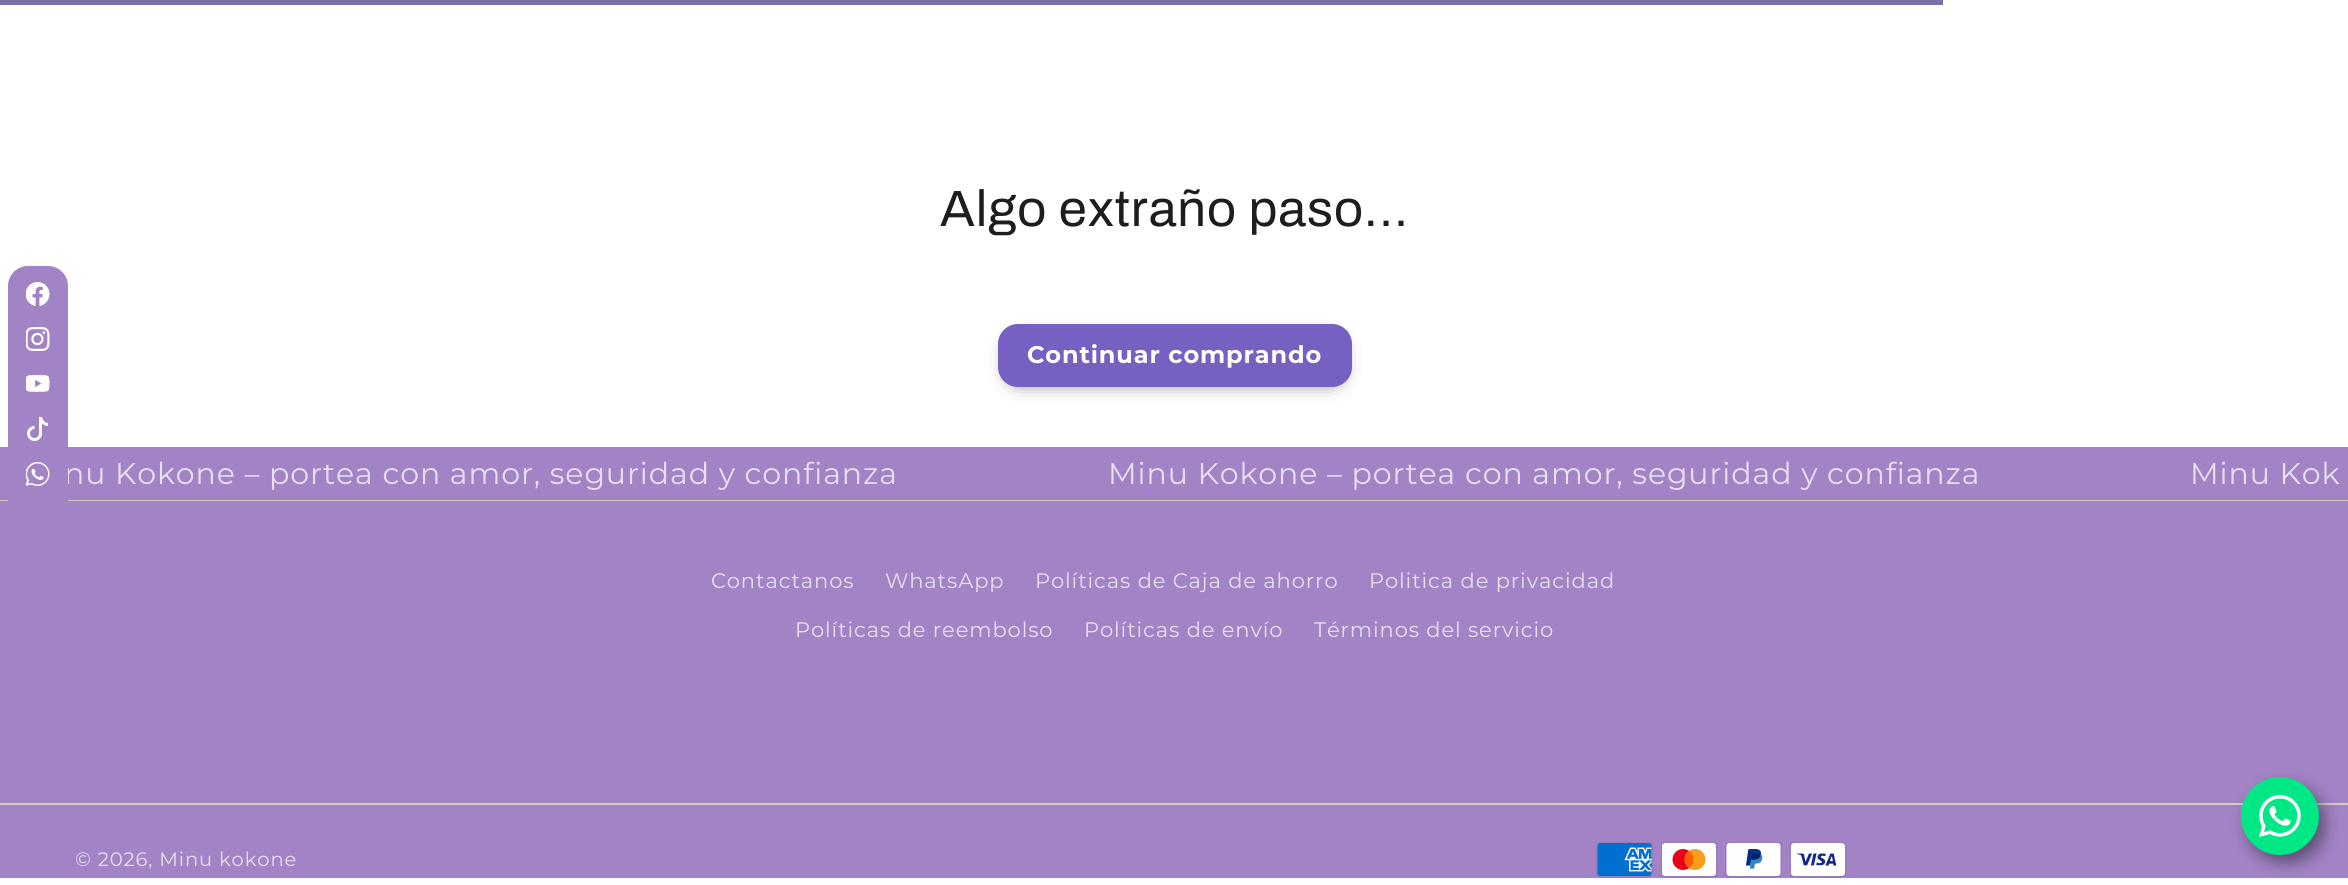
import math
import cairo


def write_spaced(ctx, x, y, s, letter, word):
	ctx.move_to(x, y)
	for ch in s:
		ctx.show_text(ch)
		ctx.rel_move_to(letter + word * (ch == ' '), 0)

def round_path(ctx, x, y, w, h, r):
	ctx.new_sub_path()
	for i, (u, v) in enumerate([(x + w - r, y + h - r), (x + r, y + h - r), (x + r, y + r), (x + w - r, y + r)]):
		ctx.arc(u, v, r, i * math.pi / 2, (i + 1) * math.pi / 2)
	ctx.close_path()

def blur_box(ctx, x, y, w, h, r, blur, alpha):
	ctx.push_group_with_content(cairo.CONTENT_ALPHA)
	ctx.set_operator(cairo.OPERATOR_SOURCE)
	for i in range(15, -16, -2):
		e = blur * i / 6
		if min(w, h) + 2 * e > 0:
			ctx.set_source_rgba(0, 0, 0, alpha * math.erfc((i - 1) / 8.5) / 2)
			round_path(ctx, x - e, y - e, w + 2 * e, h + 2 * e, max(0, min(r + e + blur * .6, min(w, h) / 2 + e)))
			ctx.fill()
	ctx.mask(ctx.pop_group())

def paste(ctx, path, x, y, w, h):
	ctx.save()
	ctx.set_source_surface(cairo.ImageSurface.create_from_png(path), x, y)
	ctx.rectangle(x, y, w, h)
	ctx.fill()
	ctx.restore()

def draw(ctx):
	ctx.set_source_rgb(1, 1, 1)
	ctx.paint()
	ctx.set_source_rgb(0.467, 0.443, 0.655)
	ctx.rectangle(0, 0, 1943, 5)
	ctx.fill()
	ctx.set_source_rgb(0.635, 0.514, 0.773)
	ctx.rectangle(0, 447, 2348, 53)
	ctx.fill()
	ctx.select_font_face('Montserrat')
	ctx.set_font_size(30)
	ctx.set_source_rgb(0.91, 0.878, 0.945)
	write_spaced(ctx, 64, 484, 'nu Kokone – portea con amor, seguridad y confianza', 0.9, 0)
	ctx.set_source_rgb(0.835, 0.796, 0.776)
	ctx.rectangle(0, 500, 2348, 1)
	ctx.fill()
	ctx.set_source_rgb(0.635, 0.514, 0.773)
	ctx.rectangle(0, 501, 2348, 302)
	ctx.fill()
	round_path(ctx, 8, 266, 60, 282, 20)
	ctx.fill()
	paste(ctx, 'media/1.png', 26, 282, 24, 24)
	paste(ctx, 'media/2.png', 26, 327, 24, 24)
	paste(ctx, 'media/3.png', 26, 375, 24, 17)
	paste(ctx, 'media/4.png', 27, 417, 21, 24)
	paste(ctx, 'media/5.png', 26, 462, 24, 24)
	ctx.select_font_face('Archivo')
	ctx.set_font_size(51)
	ctx.set_source_rgb(0.114, 0.114, 0.114)
	write_spaced(ctx, 940, 226, 'Algo extraño paso...', 0.9, 0)
	ctx.set_source_rgb(0, 0, 0)
	blur_box(ctx, 1013, 345, 324, 33, 5, 10.5, 1)
	ctx.set_source_rgb(0.463, 0.376, 0.757)
	round_path(ctx, 998, 324, 354, 63, 20)
	ctx.fill()
	ctx.select_font_face('Montserrat', cairo.FONT_SLANT_NORMAL, cairo.FONT_WEIGHT_BOLD)
	ctx.set_font_size(24)
	ctx.set_source_rgb(1, 1, 1)
	write_spaced(ctx, 1027, 363, 'Continuar comprando', 0.9, 0)
	ctx.select_font_face('Montserrat')
	ctx.set_font_size(30)
	ctx.set_source_rgb(0.91, 0.878, 0.945)
	write_spaced(ctx, 1108, 484, 'Minu Kokone – portea con amor, seguridad y confianza', 0.9, 0)
	write_spaced(ctx, 2190, 484, 'Minu Kok', 0.9, 0)
	ctx.set_font_size(21)
	for x, y, s in [
		(711, 588, 'Contactanos'),
		(885, 588, 'WhatsApp'),
		(1035, 588, 'Políticas de Caja de ahorro'),
		(1369, 588, 'Politica de privacidad'),
		(795, 637, 'Políticas de reembolso'),
		(1084, 637, 'Políticas de envío'),
		(1314, 637, 'Términos del servicio'),
	]:
		write_spaced(ctx, x, y, s, 0.9, 0)
	ctx.set_source_rgb(0.635, 0.514, 0.773)
	ctx.rectangle(0, 805, 2348, 73)
	ctx.fill()
	ctx.set_source_rgb(0.835, 0.796, 0.776)
	ctx.rectangle(0, 803, 2348, 2)
	ctx.fill()
	ctx.set_font_size(19.5)
	ctx.set_source_rgb(0.91, 0.878, 0.945)
	write_spaced(ctx, 75, 866, '© 2026, Minu kokone', 0.9, 0)
	paste(ctx, 'media/6.png', 1596, 842, 57, 36)
	paste(ctx, 'media/7.png', 1661, 842, 57, 36)
	paste(ctx, 'media/8.png', 1725, 842, 57, 36)
	paste(ctx, 'media/9.png', 1790, 842, 57, 36)
	ctx.set_source_rgb(0, 0, 0)
	blur_box(ctx, 2247, 785, 78, 78, 39, 7.5, 0.4)
	ctx.set_source_rgb(0, 0.906, 0.522)
	ctx.arc(2280, 816, 39, 0, 2 * math.pi)
	ctx.fill()
	paste(ctx, 'media/10.png', 2259, 795, 42, 42)


surface = cairo.ImageSurface(cairo.FORMAT_RGB24, 2348, 885)
ctx = cairo.Context(surface)
options = cairo.FontOptions()
options.set_hint_metrics(cairo.HINT_METRICS_OFF)
options.set_hint_style(cairo.HINT_STYLE_NONE)
ctx.set_font_options(options)
ctx.set_miter_limit(4)
draw(ctx)
surface.write_to_png('image.png')
